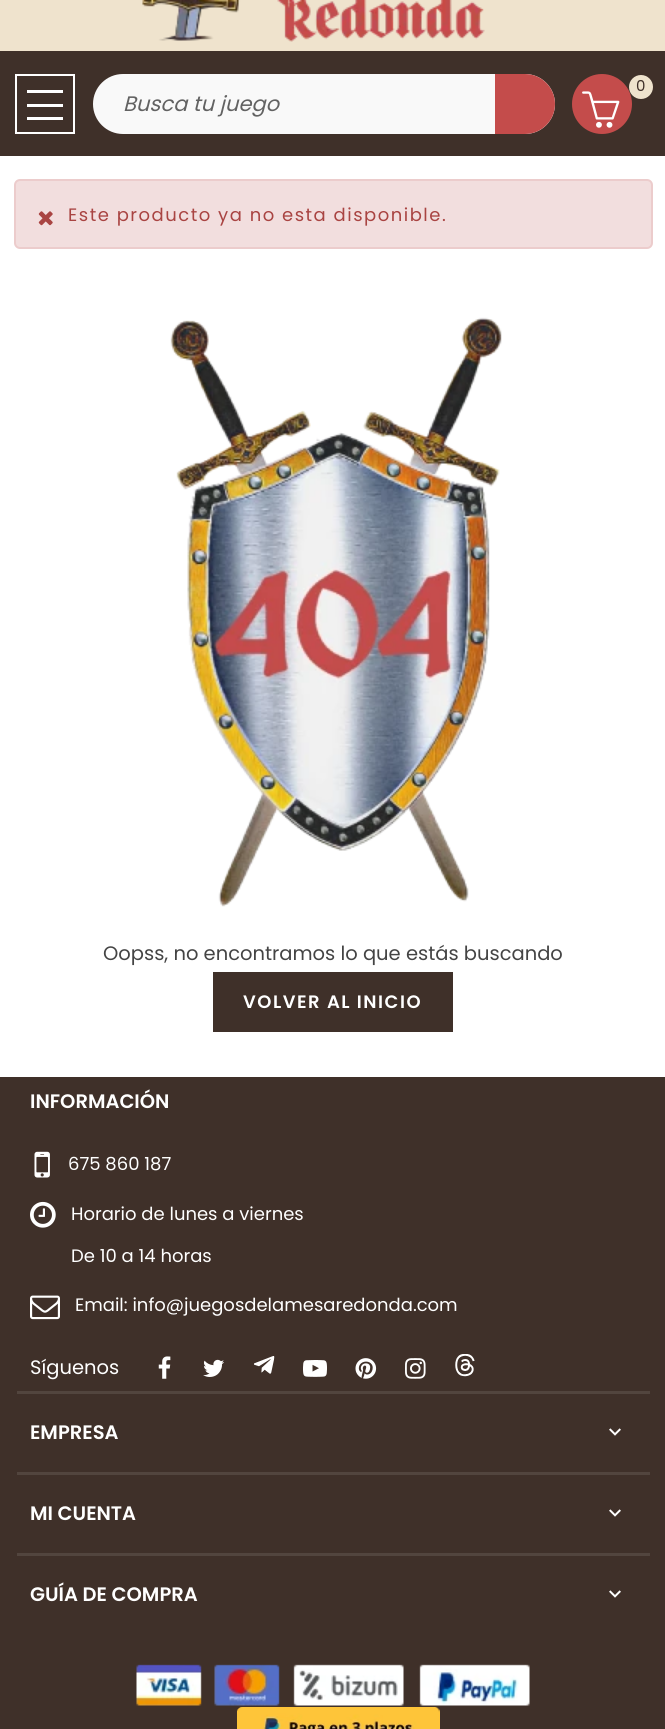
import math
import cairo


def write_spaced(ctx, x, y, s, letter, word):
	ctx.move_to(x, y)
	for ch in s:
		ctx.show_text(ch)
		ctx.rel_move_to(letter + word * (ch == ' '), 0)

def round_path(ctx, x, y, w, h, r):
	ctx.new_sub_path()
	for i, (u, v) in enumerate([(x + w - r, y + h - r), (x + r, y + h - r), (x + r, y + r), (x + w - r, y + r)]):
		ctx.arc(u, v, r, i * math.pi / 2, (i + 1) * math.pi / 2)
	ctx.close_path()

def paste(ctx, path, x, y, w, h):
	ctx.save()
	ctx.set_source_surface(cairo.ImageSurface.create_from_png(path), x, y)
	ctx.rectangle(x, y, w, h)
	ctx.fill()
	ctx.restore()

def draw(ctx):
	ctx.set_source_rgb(1, 1, 1)
	ctx.paint()
	ctx.set_source_rgb(0.247, 0.188, 0.161)
	ctx.rectangle(0, 51, 665, 105)
	ctx.fill()
	ctx.rectangle(16, 75, 58, 58)
	ctx.set_source_rgb(1, 1, 1)
	ctx.stroke()
	ctx.rectangle(27, 90, 36, 3)
	ctx.rectangle(27, 104, 36, 3)
	ctx.rectangle(27, 117, 36, 3)
	ctx.fill()
	ctx.set_source_rgb(0.937, 0.89, 0.804)
	ctx.rectangle(0, 0, 665, 51)
	ctx.fill()
	paste(ctx, 'media/1.png', 142, 0, 343, 42)
	ctx.set_source_rgb(0.769, 0.298, 0.294)
	ctx.arc(602, 104, 30, 0, 2 * math.pi)
	ctx.fill()
	paste(ctx, 'media/2.png', 582, 91, 38, 37)
	ctx.set_source_rgb(0.937, 0.89, 0.804)
	ctx.arc(641, 87, 12, 0, 2 * math.pi)
	ctx.fill()
	ctx.select_font_face('Poppins')
	ctx.set_font_size(15)
	ctx.set_source_rgb(0.247, 0.188, 0.161)
	ctx.move_to(636, 91)
	ctx.show_text('0')
	ctx.set_source_rgb(0.976, 0.976, 0.976)
	round_path(ctx, 93, 74, 462, 60, 30)
	ctx.fill()
	ctx.select_font_face('Poppins', cairo.FONT_SLANT_ITALIC)
	ctx.set_font_size(21)
	ctx.set_source_rgb(0.384, 0.384, 0.384)
	ctx.move_to(123, 111)
	ctx.show_text('Busca tu juego')
	ctx.set_source_rgb(0.769, 0.298, 0.294)
	ctx.new_path()
	ctx.move_to(495, 74)
	ctx.line_to(525, 74)
	ctx.curve_to(541.5, 74, 555, 87.5, 555, 104)
	ctx.curve_to(555, 120.5, 541.5, 134, 525, 134)
	ctx.line_to(495, 134)
	ctx.close_path()
	ctx.fill()
	ctx.set_source_rgb(0.949, 0.871, 0.871)
	round_path(ctx, 15, 180, 637, 68, 5)
	ctx.fill_preserve()
	ctx.set_source_rgb(0.922, 0.8, 0.8)
	ctx.stroke()
	paste(ctx, 'media/3.png', 38, 211, 15, 15)
	ctx.select_font_face('Poppins')
	ctx.set_font_size(18)
	ctx.set_source_rgb(0.663, 0.267, 0.259)
	write_spaced(ctx, 68, 221, 'Este producto ya no esta disponible.', 1.5, 0)
	paste(ctx, 'media/4.png', 170, 317, 332, 590)
	ctx.set_font_size(19.5)
	ctx.set_source_rgb(0.267, 0.267, 0.267)
	ctx.move_to(103, 960)
	ctx.show_text('Oopss, no encontramos lo que estás buscando')
	ctx.set_source_rgb(0.247, 0.188, 0.161)
	ctx.rectangle(213, 972, 240, 60)
	ctx.fill()
	ctx.select_font_face('Poppins SemiBold')
	ctx.set_font_size(18)
	ctx.set_source_rgb(1, 1, 1)
	write_spaced(ctx, 243, 1008, 'VOLVER AL INICIO', 1.5, 0)
	ctx.set_source_rgb(0.247, 0.188, 0.161)
	ctx.rectangle(0, 1077, 665, 652)
	ctx.fill()
	ctx.set_font_size(19.5)
	ctx.set_source_rgb(1, 1, 1)
	ctx.move_to(30, 1108)
	ctx.show_text('INFORMACIÓN')
	paste(ctx, 'media/5.png', 34, 1151, 16, 27)
	ctx.select_font_face('Poppins')
	ctx.set_font_size(18)
	ctx.move_to(68, 1170)
	ctx.show_text('675 860 187')
	paste(ctx, 'media/6.png', 30, 1201, 26, 27)
	ctx.move_to(71, 1220)
	ctx.show_text('Horario de lunes a viernes')
	ctx.move_to(71, 1262)
	ctx.show_text('De 10 a 14 horas')
	paste(ctx, 'media/7.png', 30, 1295, 30, 25)
	ctx.move_to(75, 1311)
	ctx.show_text('Email: info@juegosdelamesaredonda.com')
	ctx.set_font_size(19.5)
	ctx.move_to(30, 1374)
	ctx.show_text('Síguenos')
	paste(ctx, 'media/8.png', 158, 1356, 13, 23)
	paste(ctx, 'media/9.png', 203, 1359, 21, 18)
	paste(ctx, 'media/10.png', 254, 1356, 21, 18)
	paste(ctx, 'media/11.png', 303, 1360, 24, 17)
	paste(ctx, 'media/12.png', 355, 1358, 22, 21)
	paste(ctx, 'media/13.png', 405, 1358, 21, 21)
	paste(ctx, 'media/14.png', 455, 1354, 20, 23)
	ctx.set_source_rgb(0.322, 0.271, 0.243)
	ctx.rectangle(17, 1391, 633, 3)
	ctx.fill()
	ctx.select_font_face('Poppins SemiBold')
	ctx.set_source_rgb(1, 1, 1)
	ctx.move_to(30, 1439)
	ctx.show_text('EMPRESA')
	paste(ctx, 'media/15.png', 609, 1428, 12, 8)
	ctx.set_source_rgb(0.322, 0.271, 0.243)
	ctx.rectangle(17, 1472, 633, 3)
	ctx.fill()
	ctx.set_source_rgb(1, 1, 1)
	ctx.move_to(30, 1520)
	ctx.show_text('MI CUENTA')
	paste(ctx, 'media/15.png', 609, 1509, 12, 8)
	ctx.set_source_rgb(0.322, 0.271, 0.243)
	ctx.rectangle(17, 1553, 633, 3)
	ctx.fill()
	ctx.set_source_rgb(1, 1, 1)
	ctx.move_to(30, 1601)
	ctx.show_text('GUÍA DE COMPRA')
	paste(ctx, 'media/15.png', 609, 1590, 12, 8)
	paste(ctx, 'media/16.png', 136, 1664, 394, 42)
	paste(ctx, 'media/17.png', 237, 1707, 203, 22)


surface = cairo.ImageSurface(cairo.FORMAT_RGB24, 665, 1729)
ctx = cairo.Context(surface)
options = cairo.FontOptions()
options.set_hint_metrics(cairo.HINT_METRICS_OFF)
options.set_hint_style(cairo.HINT_STYLE_NONE)
ctx.set_font_options(options)
ctx.set_miter_limit(4)
draw(ctx)
surface.write_to_png('image.png')
